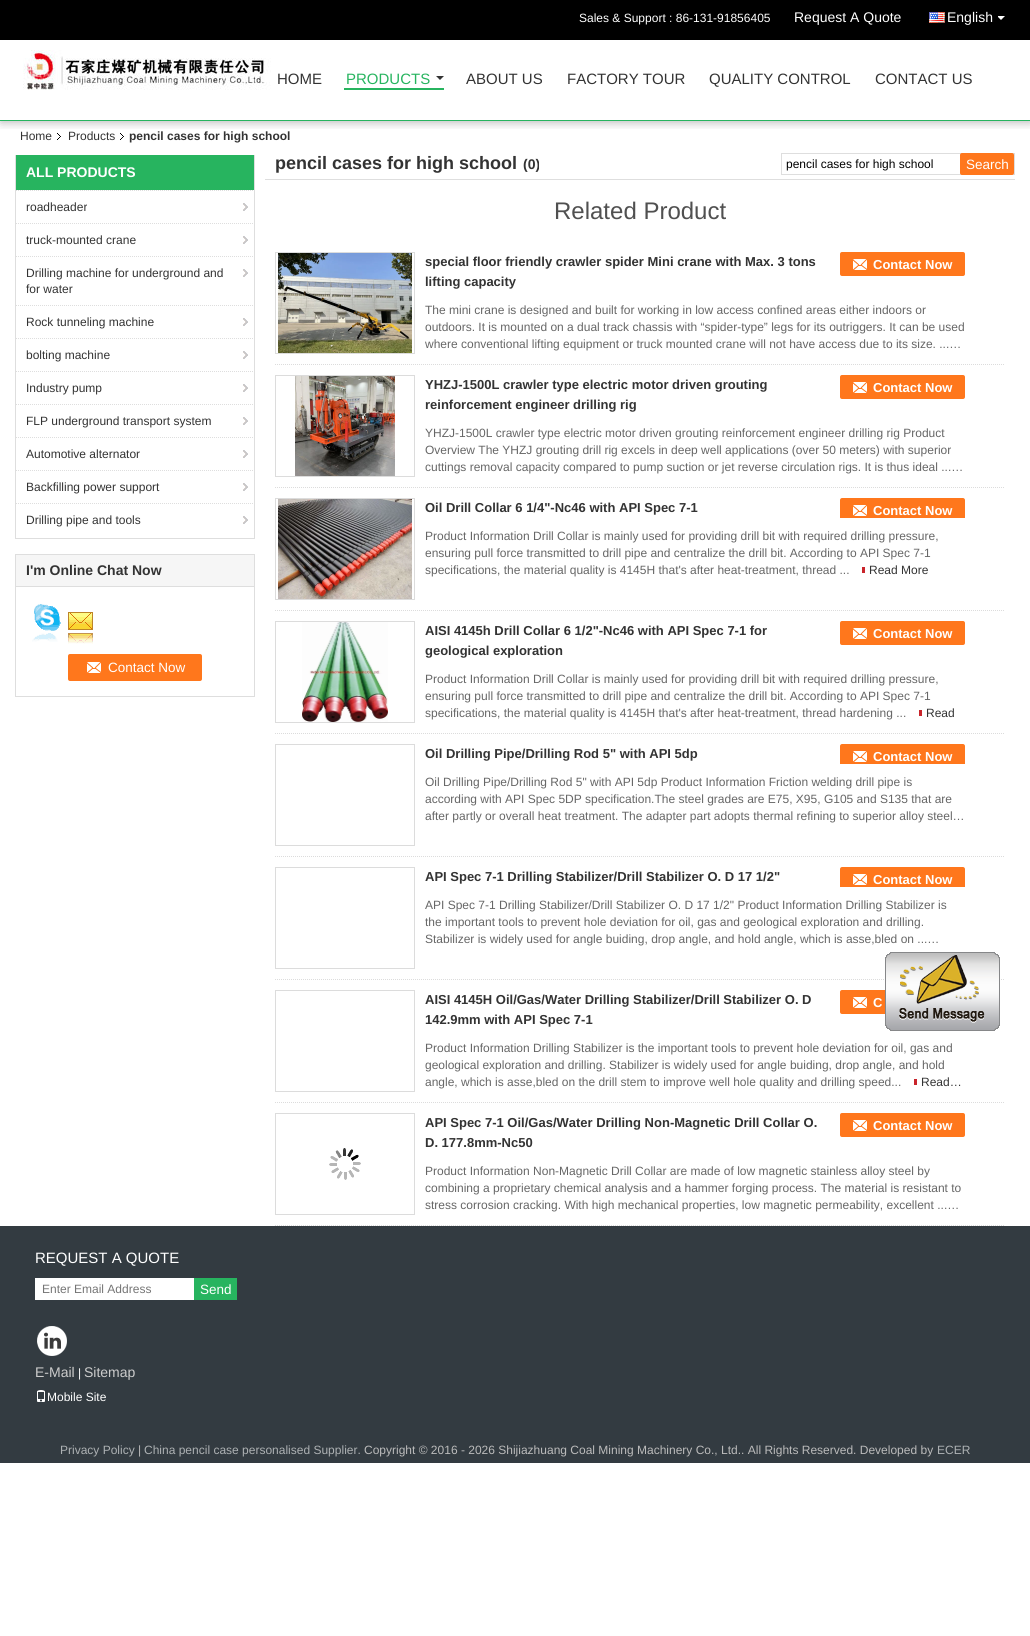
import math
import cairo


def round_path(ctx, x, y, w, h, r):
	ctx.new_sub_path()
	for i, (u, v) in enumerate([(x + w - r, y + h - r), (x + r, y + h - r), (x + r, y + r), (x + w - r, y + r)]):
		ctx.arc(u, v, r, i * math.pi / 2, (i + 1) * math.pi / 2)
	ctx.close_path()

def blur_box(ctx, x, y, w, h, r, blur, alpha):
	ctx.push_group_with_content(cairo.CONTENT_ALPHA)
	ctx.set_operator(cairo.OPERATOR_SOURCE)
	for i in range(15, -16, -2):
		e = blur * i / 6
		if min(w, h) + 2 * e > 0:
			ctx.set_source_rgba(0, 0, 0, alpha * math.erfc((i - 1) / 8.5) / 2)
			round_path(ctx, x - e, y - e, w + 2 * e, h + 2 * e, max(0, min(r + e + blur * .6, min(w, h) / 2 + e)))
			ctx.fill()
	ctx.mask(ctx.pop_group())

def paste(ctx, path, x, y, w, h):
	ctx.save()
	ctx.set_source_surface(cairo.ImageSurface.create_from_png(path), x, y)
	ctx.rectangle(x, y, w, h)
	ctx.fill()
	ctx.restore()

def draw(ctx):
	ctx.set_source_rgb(1, 1, 1)
	ctx.paint()
	ctx.save()
	ctx.rectangle(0, 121, 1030, 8)
	ctx.clip()
	ctx.set_source_rgb(0, 0, 0)
	blur_box(ctx, 1, 1, 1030, 121, 0, 5, 0.3)
	ctx.restore()
	ctx.set_source_rgb(0.153, 0.706, 0.373)
	ctx.rectangle(0, 120, 1030, 1)
	ctx.fill()
	ctx.set_source_rgb(0, 0, 0)
	ctx.rectangle(0, 0, 1030, 40)
	ctx.fill()
	ctx.select_font_face('Liberation Sans')
	ctx.set_font_size(12)
	ctx.set_source_rgb(1, 1, 1)
	ctx.move_to(579, 22)
	ctx.show_text('Sales & Support : 86-131-91856405')
	ctx.set_font_size(14)
	ctx.move_to(794, 22)
	ctx.show_text('Request A Quote')
	paste(ctx, 'media/1.png', 929, 12, 16, 11)
	ctx.move_to(947, 22)
	ctx.show_text('English')
	paste(ctx, 'media/2.png', 998, 16, 7, 4)
	paste(ctx, 'media/3.png', 23, 50, 248, 40)
	ctx.set_font_size(15)
	ctx.set_source_rgb(0.2, 0.2, 0.2)
	ctx.move_to(277, 84)
	ctx.show_text('HOME')
	ctx.set_source_rgb(0.153, 0.706, 0.373)
	ctx.rectangle(344, 88, 100, 2)
	ctx.fill()
	ctx.move_to(346, 84)
	ctx.show_text('PRODUCTS')
	ctx.set_source_rgb(0.2, 0.2, 0.2)
	ctx.new_path()
	ctx.move_to(436, 76)
	ctx.line_to(444, 76)
	ctx.line_to(440, 80)
	ctx.close_path()
	ctx.fill()
	for x, y, s in [
		(466, 84, 'ABOUT US'),
		(567, 84, 'FACTORY TOUR'),
		(709, 84, 'QUALITY CONTROL'),
		(875, 84, 'CONTACT US'),
	]:
		ctx.move_to(x, y)
		ctx.show_text(s)
	ctx.set_font_size(12)
	ctx.move_to(20, 140)
	ctx.show_text('Home')
	paste(ctx, 'media/4.png', 57, 133, 4, 7)
	ctx.move_to(68, 140)
	ctx.show_text('Products')
	paste(ctx, 'media/4.png', 120, 133, 4, 7)
	ctx.select_font_face('Liberation Sans', cairo.FONT_SLANT_NORMAL, cairo.FONT_WEIGHT_BOLD)
	ctx.move_to(129, 140)
	ctx.show_text('pencil cases for high school')
	ctx.set_source_rgb(0.871, 0.871, 0.871)
	ctx.rectangle(254, 155, 1, 384)
	ctx.rectangle(15, 538, 240, 1)
	ctx.rectangle(15, 155, 1, 384)
	ctx.fill()
	ctx.set_source_rgb(0.153, 0.706, 0.373)
	ctx.rectangle(16, 155, 238, 35)
	ctx.fill()
	ctx.set_font_size(14)
	ctx.set_source_rgb(1, 1, 1)
	ctx.move_to(26, 177)
	ctx.show_text('ALL PRODUCTS')
	paste(ctx, 'media/5.png', 243, 203, 5, 8)
	ctx.new_path()
	ctx.move_to(16, 190.5)
	ctx.line_to(256, 190.5)
	ctx.set_source_rgb(0.871, 0.871, 0.871)
	ctx.set_line_width(1)
	ctx.set_dash([1, 1])
	ctx.stroke()
	ctx.select_font_face('Liberation Sans')
	ctx.set_font_size(12)
	ctx.set_source_rgb(0.2, 0.2, 0.2)
	ctx.move_to(26, 211)
	ctx.show_text('roadheader')
	paste(ctx, 'media/5.png', 243, 236, 5, 8)
	ctx.new_path()
	ctx.move_to(16, 223.5)
	ctx.line_to(256, 223.5)
	ctx.set_source_rgb(0.871, 0.871, 0.871)
	ctx.stroke()
	ctx.set_source_rgb(0.2, 0.2, 0.2)
	ctx.move_to(26, 244)
	ctx.show_text('truck-mounted crane')
	paste(ctx, 'media/5.png', 243, 269, 5, 8)
	ctx.new_path()
	ctx.move_to(16, 256.5)
	ctx.line_to(256, 256.5)
	ctx.set_source_rgb(0.871, 0.871, 0.871)
	ctx.stroke()
	ctx.set_source_rgb(0.2, 0.2, 0.2)
	ctx.move_to(26, 277)
	ctx.show_text('Drilling machine for underground and')
	ctx.move_to(26, 293)
	ctx.show_text('for water')
	paste(ctx, 'media/5.png', 243, 318, 5, 8)
	ctx.new_path()
	ctx.move_to(16, 305.5)
	ctx.line_to(256, 305.5)
	ctx.set_source_rgb(0.871, 0.871, 0.871)
	ctx.stroke()
	ctx.set_source_rgb(0.2, 0.2, 0.2)
	ctx.move_to(26, 326)
	ctx.show_text('Rock tunneling machine')
	paste(ctx, 'media/5.png', 243, 351, 5, 8)
	ctx.new_path()
	ctx.move_to(16, 338.5)
	ctx.line_to(256, 338.5)
	ctx.set_source_rgb(0.871, 0.871, 0.871)
	ctx.stroke()
	ctx.set_source_rgb(0.2, 0.2, 0.2)
	ctx.move_to(26, 359)
	ctx.show_text('bolting machine')
	paste(ctx, 'media/5.png', 243, 384, 5, 8)
	ctx.new_path()
	ctx.move_to(16, 371.5)
	ctx.line_to(256, 371.5)
	ctx.set_source_rgb(0.871, 0.871, 0.871)
	ctx.stroke()
	ctx.set_source_rgb(0.2, 0.2, 0.2)
	ctx.move_to(26, 392)
	ctx.show_text('Industry pump')
	paste(ctx, 'media/5.png', 243, 417, 5, 8)
	ctx.new_path()
	ctx.move_to(16, 404.5)
	ctx.line_to(256, 404.5)
	ctx.set_source_rgb(0.871, 0.871, 0.871)
	ctx.stroke()
	ctx.set_source_rgb(0.2, 0.2, 0.2)
	ctx.move_to(26, 425)
	ctx.show_text('FLP underground transport system')
	paste(ctx, 'media/5.png', 243, 450, 5, 8)
	ctx.new_path()
	ctx.move_to(16, 437.5)
	ctx.line_to(256, 437.5)
	ctx.set_source_rgb(0.871, 0.871, 0.871)
	ctx.stroke()
	ctx.set_source_rgb(0.2, 0.2, 0.2)
	ctx.move_to(26, 458)
	ctx.show_text('Automotive alternator')
	paste(ctx, 'media/5.png', 243, 483, 5, 8)
	ctx.new_path()
	ctx.move_to(16, 470.5)
	ctx.line_to(256, 470.5)
	ctx.set_source_rgb(0.871, 0.871, 0.871)
	ctx.stroke()
	ctx.set_source_rgb(0.2, 0.2, 0.2)
	ctx.move_to(26, 491)
	ctx.show_text('Backfilling power support')
	paste(ctx, 'media/5.png', 243, 516, 5, 8)
	ctx.new_path()
	ctx.move_to(16, 503.5)
	ctx.line_to(256, 503.5)
	ctx.set_source_rgb(0.871, 0.871, 0.871)
	ctx.stroke()
	ctx.set_source_rgb(0.2, 0.2, 0.2)
	ctx.move_to(26, 524)
	ctx.show_text('Drilling pipe and tools')
	ctx.rectangle(15.5, 554.5, 239, 142)
	ctx.set_source_rgb(0.871, 0.871, 0.871)
	ctx.set_dash([])
	ctx.stroke()
	ctx.set_source_rgb(0.961, 0.961, 0.961)
	ctx.rectangle(16, 555, 238, 31)
	ctx.fill()
	ctx.set_source_rgb(0.871, 0.871, 0.871)
	ctx.rectangle(16, 586, 238, 1)
	ctx.fill()
	ctx.select_font_face('Liberation Sans', cairo.FONT_SLANT_NORMAL, cairo.FONT_WEIGHT_BOLD)
	ctx.set_font_size(14)
	ctx.set_source_rgb(0.2, 0.2, 0.2)
	ctx.move_to(26, 575)
	ctx.show_text('I\'m Online Chat Now')
	paste(ctx, 'media/6.png', 32, 604, 29, 38)
	paste(ctx, 'media/7.png', 68, 612, 25, 32)
	ctx.set_source_rgb(1, 0.467, 0.11)
	round_path(ctx, 68, 654, 134, 27, 2)
	ctx.fill()
	paste(ctx, 'media/8.png', 87, 662, 14, 11)
	ctx.select_font_face('Liberation Sans')
	ctx.set_font_size(13.5)
	ctx.set_source_rgb(1, 1, 1)
	ctx.move_to(108, 672)
	ctx.show_text('Contact Now')
	ctx.set_source_rgb(0.871, 0.871, 0.871)
	ctx.rectangle(265, 179, 750, 1)
	ctx.fill()
	ctx.select_font_face('Liberation Sans', cairo.FONT_SLANT_NORMAL, cairo.FONT_WEIGHT_BOLD)
	ctx.set_font_size(18)
	ctx.set_source_rgb(0.2, 0.2, 0.2)
	ctx.move_to(275, 169)
	ctx.show_text('pencil cases for high school')
	ctx.set_font_size(14)
	ctx.move_to(523, 169)
	ctx.show_text('(0)')
	ctx.rectangle(781.5, 153.5, 233, 21)
	ctx.set_source_rgb(0.871, 0.871, 0.871)
	ctx.stroke()
	ctx.select_font_face('Liberation Sans')
	ctx.set_font_size(12)
	ctx.set_source_rgb(0, 0, 0)
	ctx.move_to(786, 168)
	ctx.show_text('pencil cases for high school')
	ctx.set_source_rgb(1, 0.467, 0.11)
	round_path(ctx, 960, 153, 54, 22, 2)
	ctx.fill()
	ctx.set_font_size(13.5)
	ctx.set_source_rgb(1, 1, 1)
	ctx.move_to(966, 169)
	ctx.show_text('Search')
	ctx.set_font_size(24)
	ctx.set_source_rgb(0.314, 0.314, 0.314)
	ctx.move_to(554, 219)
	ctx.show_text('Related Product')
	ctx.new_path()
	ctx.move_to(275, 364.5)
	ctx.line_to(1005, 364.5)
	ctx.set_source_rgb(0.863, 0.863, 0.863)
	ctx.set_dash([1, 1])
	ctx.stroke()
	ctx.rectangle(275.5, 252.5, 139, 101)
	ctx.set_dash([])
	ctx.stroke()
	paste(ctx, 'media/9.png', 278, 253, 134, 100)
	ctx.select_font_face('Liberation Sans', cairo.FONT_SLANT_NORMAL, cairo.FONT_WEIGHT_BOLD)
	ctx.set_font_size(13)
	ctx.set_source_rgb(0.2, 0.2, 0.2)
	ctx.move_to(425, 266)
	ctx.show_text('special floor friendly crawler spider Mini crane with Max. 3 tons')
	ctx.set_source_rgb(1, 0.467, 0.11)
	round_path(ctx, 840, 252, 125, 24, 2)
	ctx.fill()
	paste(ctx, 'media/8.png', 853, 259, 14, 11)
	ctx.set_source_rgb(1, 1, 1)
	ctx.move_to(873, 269)
	ctx.show_text('Contact Now')
	ctx.set_source_rgb(0.2, 0.2, 0.2)
	ctx.move_to(425, 286)
	ctx.show_text('lifting capacity')
	ctx.select_font_face('Liberation Sans')
	ctx.set_font_size(12)
	ctx.set_source_rgb(0.4, 0.4, 0.4)
	for x, y, s in [
		(425, 314, 'The mini crane is designed and built for working in low access confined areas either indoors or'),
		(425, 331, 'outdoors. It is mounted on a dual track chassis with “spider-type” legs for its outriggers. It can be used'),
		(425, 348, 'where conventional lifting equipment or truck mounted crane will not have access due to its size. ...…'),
	]:
		ctx.move_to(x, y)
		ctx.show_text(s)
	ctx.new_path()
	ctx.move_to(275, 487.5)
	ctx.line_to(1005, 487.5)
	ctx.set_source_rgb(0.863, 0.863, 0.863)
	ctx.set_dash([1, 1])
	ctx.stroke()
	ctx.rectangle(275.5, 375.5, 139, 101)
	ctx.set_dash([])
	ctx.stroke()
	paste(ctx, 'media/10.png', 295, 376, 100, 100)
	ctx.select_font_face('Liberation Sans', cairo.FONT_SLANT_NORMAL, cairo.FONT_WEIGHT_BOLD)
	ctx.set_font_size(13)
	ctx.set_source_rgb(0.2, 0.2, 0.2)
	ctx.move_to(425, 389)
	ctx.show_text('YHZJ-1500L crawler type electric motor driven grouting')
	ctx.set_source_rgb(1, 0.467, 0.11)
	round_path(ctx, 840, 375, 125, 24, 2)
	ctx.fill()
	paste(ctx, 'media/8.png', 853, 382, 14, 11)
	ctx.set_source_rgb(1, 1, 1)
	ctx.move_to(873, 392)
	ctx.show_text('Contact Now')
	ctx.set_source_rgb(0.2, 0.2, 0.2)
	ctx.move_to(425, 409)
	ctx.show_text('reinforcement engineer drilling rig')
	ctx.select_font_face('Liberation Sans')
	ctx.set_font_size(12)
	ctx.set_source_rgb(0.4, 0.4, 0.4)
	for x, y, s in [
		(425, 437, 'YHZJ-1500L crawler type electric motor driven grouting reinforcement engineer drilling rig Product'),
		(425, 454, 'Overview The YHZJ grouting drill rig excels in deep well applications (over 50 meters) with superior'),
		(425, 471, 'cuttings removal capacity compared to pump suction or jet reverse circulation rigs. It is thus ideal ...…'),
	]:
		ctx.move_to(x, y)
		ctx.show_text(s)
	ctx.new_path()
	ctx.move_to(275, 610.5)
	ctx.line_to(1005, 610.5)
	ctx.set_source_rgb(0.863, 0.863, 0.863)
	ctx.set_dash([1, 1])
	ctx.stroke()
	ctx.rectangle(275.5, 498.5, 139, 101)
	ctx.set_dash([])
	ctx.stroke()
	paste(ctx, 'media/11.png', 278, 499, 134, 100)
	ctx.select_font_face('Liberation Sans', cairo.FONT_SLANT_NORMAL, cairo.FONT_WEIGHT_BOLD)
	ctx.set_font_size(13)
	ctx.set_source_rgb(0.2, 0.2, 0.2)
	ctx.move_to(425, 512)
	ctx.show_text('Oil Drill Collar 6 1/4"-Nc46 with API Spec 7-1')
	ctx.set_source_rgb(1, 0.467, 0.11)
	ctx.new_path()
	ctx.move_to(842, 498)
	ctx.line_to(963, 498)
	ctx.curve_to(964, 498, 965, 499, 965, 500)
	ctx.line_to(965, 518)
	ctx.line_to(840, 518)
	ctx.line_to(840, 500)
	ctx.curve_to(840, 499, 841, 498, 842, 498)
	ctx.close_path()
	ctx.fill()
	paste(ctx, 'media/8.png', 853, 505, 14, 11)
	ctx.set_source_rgb(1, 1, 1)
	ctx.move_to(873, 515)
	ctx.show_text('Contact Now')
	ctx.select_font_face('Liberation Sans')
	ctx.set_font_size(12)
	ctx.set_source_rgb(0.4, 0.4, 0.4)
	for x, y, s in [
		(425, 540, 'Product Information Drill Collar is mainly used for providing drill bit with required drilling pressure,'),
		(425, 557, 'ensuring pull force transmitted to drill pipe and centralize the drill bit. According to API Spec 7-1'),
		(425, 574, 'specifications, the material quality is 4145H that\'s after heat-treatment, thread ...'),
	]:
		ctx.move_to(x, y)
		ctx.show_text(s)
	ctx.set_source_rgb(0.2, 0.2, 0.2)
	ctx.move_to(869, 574)
	ctx.show_text('Read More')
	ctx.set_source_rgb(0.788, 0.141, 0.169)
	ctx.rectangle(862, 567, 3, 6)
	ctx.fill()
	ctx.new_path()
	ctx.move_to(275, 733.5)
	ctx.line_to(1005, 733.5)
	ctx.set_source_rgb(0.863, 0.863, 0.863)
	ctx.set_dash([1, 1])
	ctx.stroke()
	ctx.rectangle(275.5, 621.5, 139, 101)
	ctx.set_dash([])
	ctx.stroke()
	paste(ctx, 'media/12.png', 302, 622, 86, 100)
	ctx.select_font_face('Liberation Sans', cairo.FONT_SLANT_NORMAL, cairo.FONT_WEIGHT_BOLD)
	ctx.set_font_size(13)
	ctx.set_source_rgb(0.2, 0.2, 0.2)
	ctx.move_to(425, 635)
	ctx.show_text('AISI 4145h Drill Collar 6 1/2"-Nc46 with API Spec 7-1 for')
	ctx.set_source_rgb(1, 0.467, 0.11)
	round_path(ctx, 840, 621, 125, 24, 2)
	ctx.fill()
	paste(ctx, 'media/8.png', 853, 628, 14, 11)
	ctx.set_source_rgb(1, 1, 1)
	ctx.move_to(873, 638)
	ctx.show_text('Contact Now')
	ctx.set_source_rgb(0.2, 0.2, 0.2)
	ctx.move_to(425, 655)
	ctx.show_text('geological exploration')
	ctx.select_font_face('Liberation Sans')
	ctx.set_font_size(12)
	ctx.set_source_rgb(0.4, 0.4, 0.4)
	for x, y, s in [
		(425, 683, 'Product Information Drill Collar is mainly used for providing drill bit with required drilling pressure,'),
		(425, 700, 'ensuring pull force transmitted to drill pipe and centralize the drill bit. According to API Spec 7-1'),
		(425, 717, 'specifications, the material quality is 4145H that\'s after heat-treatment, thread hardening ...'),
	]:
		ctx.move_to(x, y)
		ctx.show_text(s)
	ctx.set_source_rgb(0.2, 0.2, 0.2)
	ctx.move_to(926, 717)
	ctx.show_text('Read')
	ctx.set_source_rgb(0.788, 0.141, 0.169)
	ctx.rectangle(919, 710, 3, 6)
	ctx.fill()
	ctx.new_path()
	ctx.move_to(275, 856.5)
	ctx.line_to(1005, 856.5)
	ctx.set_source_rgb(0.863, 0.863, 0.863)
	ctx.set_dash([1, 1])
	ctx.stroke()
	ctx.rectangle(275.5, 744.5, 139, 101)
	ctx.set_dash([])
	ctx.stroke()
	ctx.select_font_face('Liberation Sans', cairo.FONT_SLANT_NORMAL, cairo.FONT_WEIGHT_BOLD)
	ctx.set_font_size(13)
	ctx.set_source_rgb(0.2, 0.2, 0.2)
	ctx.move_to(425, 758)
	ctx.show_text('Oil Drilling Pipe/Drilling Rod 5" with API 5dp')
	ctx.set_source_rgb(1, 0.467, 0.11)
	ctx.new_path()
	ctx.move_to(842, 744)
	ctx.line_to(963, 744)
	ctx.curve_to(964, 744, 965, 745, 965, 746)
	ctx.line_to(965, 764)
	ctx.line_to(840, 764)
	ctx.line_to(840, 746)
	ctx.curve_to(840, 745, 841, 744, 842, 744)
	ctx.close_path()
	ctx.fill()
	paste(ctx, 'media/8.png', 853, 751, 14, 11)
	ctx.set_source_rgb(1, 1, 1)
	ctx.move_to(873, 761)
	ctx.show_text('Contact Now')
	ctx.select_font_face('Liberation Sans')
	ctx.set_font_size(12)
	ctx.set_source_rgb(0.4, 0.4, 0.4)
	for x, y, s in [
		(425, 786, 'Oil Drilling Pipe/Drilling Rod 5" with API 5dp Product Information Friction welding drill pipe is'),
		(425, 803, 'according with API Spec 5DP specification.The steel grades are E75, X95, G105 and S135 that are'),
		(425, 820, 'after partly or overall heat treatment. The adapter part adopts thermal refining to superior alloy steel…'),
	]:
		ctx.move_to(x, y)
		ctx.show_text(s)
	ctx.new_path()
	ctx.move_to(275, 979.5)
	ctx.line_to(1005, 979.5)
	ctx.set_source_rgb(0.863, 0.863, 0.863)
	ctx.set_dash([1, 1])
	ctx.stroke()
	ctx.rectangle(275.5, 867.5, 139, 101)
	ctx.set_dash([])
	ctx.stroke()
	ctx.select_font_face('Liberation Sans', cairo.FONT_SLANT_NORMAL, cairo.FONT_WEIGHT_BOLD)
	ctx.set_font_size(13)
	ctx.set_source_rgb(0.2, 0.2, 0.2)
	ctx.move_to(425, 881)
	ctx.show_text('API Spec 7-1 Drilling Stabilizer/Drill Stabilizer O. D 17 1/2"')
	ctx.set_source_rgb(1, 0.467, 0.11)
	ctx.new_path()
	ctx.move_to(842, 867)
	ctx.line_to(963, 867)
	ctx.curve_to(964, 867, 965, 868, 965, 869)
	ctx.line_to(965, 887)
	ctx.line_to(840, 887)
	ctx.line_to(840, 869)
	ctx.curve_to(840, 868, 841, 867, 842, 867)
	ctx.close_path()
	ctx.fill()
	paste(ctx, 'media/8.png', 853, 874, 14, 11)
	ctx.set_source_rgb(1, 1, 1)
	ctx.move_to(873, 884)
	ctx.show_text('Contact Now')
	ctx.select_font_face('Liberation Sans')
	ctx.set_font_size(12)
	ctx.set_source_rgb(0.4, 0.4, 0.4)
	for x, y, s in [
		(425, 909, 'API Spec 7-1 Drilling Stabilizer/Drill Stabilizer O. D 17 1/2" Product Information Drilling Stabilizer is'),
		(425, 926, 'the important tools to prevent hole deviation for oil, gas and geological exploration and drilling.'),
		(425, 943, 'Stabilizer is widely used for angle buiding, drop angle, and hold angle, which is asse,bled on ...…'),
	]:
		ctx.move_to(x, y)
		ctx.show_text(s)
	ctx.new_path()
	ctx.move_to(275, 1102.5)
	ctx.line_to(1005, 1102.5)
	ctx.set_source_rgb(0.863, 0.863, 0.863)
	ctx.set_dash([1, 1])
	ctx.stroke()
	ctx.rectangle(275.5, 990.5, 139, 101)
	ctx.set_dash([])
	ctx.stroke()
	ctx.select_font_face('Liberation Sans', cairo.FONT_SLANT_NORMAL, cairo.FONT_WEIGHT_BOLD)
	ctx.set_font_size(13)
	ctx.set_source_rgb(0.2, 0.2, 0.2)
	ctx.move_to(425, 1004)
	ctx.show_text('AISI 4145H Oil/Gas/Water Drilling Stabilizer/Drill Stabilizer O. D')
	ctx.set_source_rgb(1, 0.467, 0.11)
	round_path(ctx, 840, 990, 125, 24, 2)
	ctx.fill()
	paste(ctx, 'media/8.png', 853, 997, 14, 11)
	ctx.set_source_rgb(1, 1, 1)
	ctx.move_to(873, 1007)
	ctx.show_text('C')
	ctx.set_source_rgb(0.2, 0.2, 0.2)
	ctx.move_to(425, 1024)
	ctx.show_text('142.9mm with API Spec 7-1')
	ctx.select_font_face('Liberation Sans')
	ctx.set_font_size(12)
	ctx.set_source_rgb(0.4, 0.4, 0.4)
	for x, y, s in [
		(425, 1052, 'Product Information Drilling Stabilizer is the important tools to prevent hole deviation for oil, gas and'),
		(425, 1069, 'geological exploration and drilling. Stabilizer is widely used for angle buiding, drop angle, and hold'),
		(425, 1086, 'angle, which is asse,bled on the drill stem to improve well hole quality and drilling speed...'),
	]:
		ctx.move_to(x, y)
		ctx.show_text(s)
	ctx.set_source_rgb(0.2, 0.2, 0.2)
	ctx.move_to(921, 1086)
	ctx.show_text('Read…')
	ctx.set_source_rgb(0.788, 0.141, 0.169)
	ctx.rectangle(914, 1079, 3, 6)
	ctx.fill()
	ctx.new_path()
	ctx.move_to(275, 1225.5)
	ctx.line_to(1005, 1225.5)
	ctx.set_source_rgb(0.863, 0.863, 0.863)
	ctx.set_dash([1, 1])
	ctx.stroke()
	ctx.rectangle(275.5, 1113.5, 139, 101)
	ctx.set_dash([])
	ctx.stroke()
	paste(ctx, 'media/13.png', 329, 1148, 32, 32)
	ctx.select_font_face('Liberation Sans', cairo.FONT_SLANT_NORMAL, cairo.FONT_WEIGHT_BOLD)
	ctx.set_font_size(13)
	ctx.set_source_rgb(0.2, 0.2, 0.2)
	ctx.move_to(425, 1127)
	ctx.show_text('API Spec 7-1 Oil/Gas/Water Drilling Non-Magnetic Drill Collar O.')
	ctx.set_source_rgb(1, 0.467, 0.11)
	round_path(ctx, 840, 1113, 125, 24, 2)
	ctx.fill()
	paste(ctx, 'media/8.png', 853, 1120, 14, 11)
	ctx.set_source_rgb(1, 1, 1)
	ctx.move_to(873, 1130)
	ctx.show_text('Contact Now')
	ctx.set_source_rgb(0.2, 0.2, 0.2)
	ctx.move_to(425, 1147)
	ctx.show_text('D. 177.8mm-Nc50')
	ctx.select_font_face('Liberation Sans')
	ctx.set_font_size(12)
	ctx.set_source_rgb(0.4, 0.4, 0.4)
	for x, y, s in [
		(425, 1175, 'Product Information Non-Magnetic Drill Collar are made of low magnetic stainless alloy steel by'),
		(425, 1192, 'combining a proprietary chemical analysis and a hammer forging process. The material is resistant to'),
		(425, 1209, 'stress corrosion cracking. With high mechanical properties, low magnetic permeability, excellent ...…'),
	]:
		ctx.move_to(x, y)
		ctx.show_text(s)
	paste(ctx, 'media/14.png', 885, 952, 115, 79)
	ctx.set_source_rgb(0.2, 0.231, 0.255)
	ctx.rectangle(0, 1226, 1030, 237)
	ctx.fill()
	ctx.set_font_size(15)
	ctx.set_source_rgb(1, 1, 1)
	ctx.move_to(35, 1263)
	ctx.show_text('REQUEST A QUOTE')
	ctx.rectangle(35, 1278, 159, 22)
	ctx.fill()
	ctx.set_font_size(12)
	ctx.set_source_rgb(0.459, 0.459, 0.459)
	ctx.move_to(42, 1293)
	ctx.show_text('Enter Email Address')
	ctx.set_source_rgb(0.153, 0.706, 0.373)
	ctx.rectangle(194, 1278, 43, 22)
	ctx.fill()
	ctx.set_font_size(13.5)
	ctx.set_source_rgb(1, 1, 1)
	ctx.move_to(200, 1294)
	ctx.show_text('Send')
	paste(ctx, 'media/15.png', 37, 1326, 30, 30)
	ctx.set_font_size(14)
	ctx.set_source_rgb(0.8, 0.8, 0.8)
	ctx.move_to(35, 1377)
	ctx.show_text('E-Mail')
	ctx.set_font_size(12)
	ctx.set_source_rgb(1, 1, 1)
	ctx.move_to(78, 1377)
	ctx.show_text('|')
	ctx.set_font_size(14)
	ctx.set_source_rgb(0.8, 0.8, 0.8)
	ctx.move_to(84, 1377)
	ctx.show_text('Sitemap')
	paste(ctx, 'media/16.png', 37, 1390, 8, 12)
	ctx.set_font_size(12)
	ctx.set_source_rgb(1, 1, 1)
	ctx.move_to(47, 1401)
	ctx.show_text('Mobile Site')
	ctx.set_source_rgb(0.678, 0.694, 0.702)
	ctx.move_to(60, 1454)
	ctx.show_text('Privacy Policy')
	ctx.set_source_rgb(0.733, 0.733, 0.733)
	ctx.move_to(138, 1454)
	ctx.show_text('|')
	ctx.set_source_rgb(0.678, 0.694, 0.702)
	ctx.move_to(144, 1454)
	ctx.show_text('China pencil case personalised Supplier.')
	ctx.set_source_rgb(0.733, 0.733, 0.733)
	ctx.move_to(364, 1454)
	ctx.show_text('Copyright © 2016 - 2026 Shijiazhuang Coal Mining Machinery Co., Ltd.. All Rights Reserved. Developed by')
	ctx.set_source_rgb(0.678, 0.694, 0.702)
	ctx.move_to(937, 1454)
	ctx.show_text('ECER')


surface = cairo.ImageSurface(cairo.FORMAT_RGB24, 1030, 1636)
ctx = cairo.Context(surface)
options = cairo.FontOptions()
options.set_hint_metrics(cairo.HINT_METRICS_OFF)
options.set_hint_style(cairo.HINT_STYLE_NONE)
ctx.set_font_options(options)
ctx.set_miter_limit(4)
draw(ctx)
surface.write_to_png('image.png')
